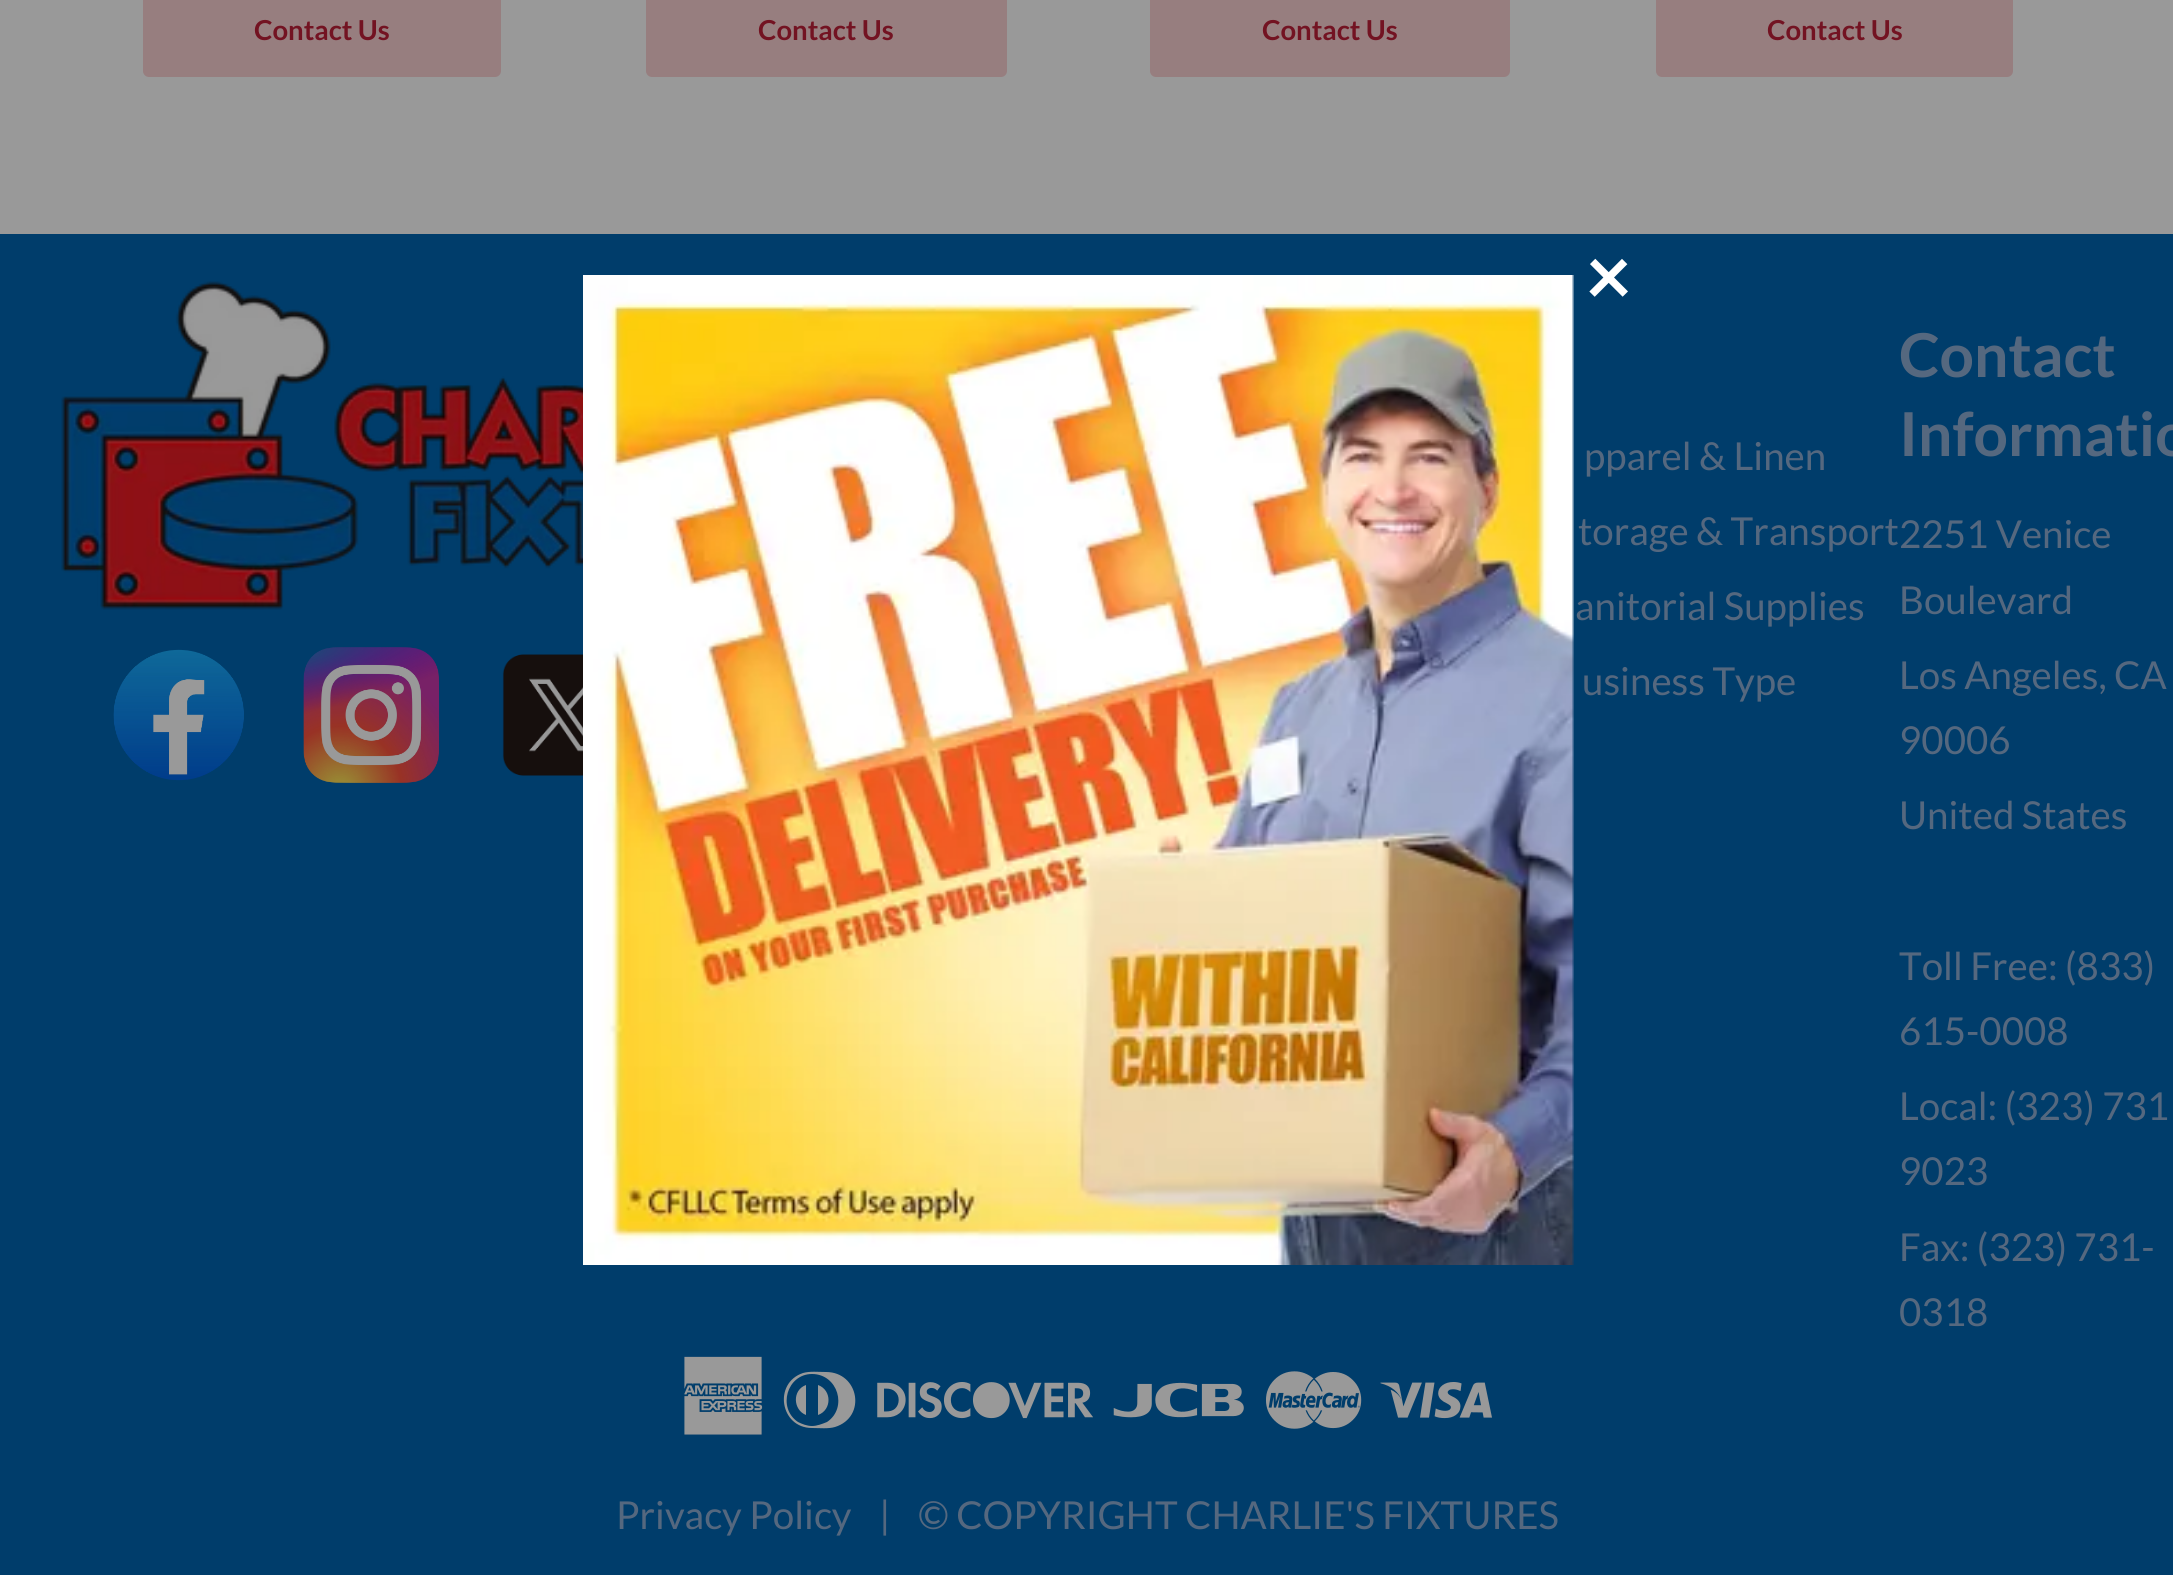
import math
import cairo


def round_path(ctx, x, y, w, h, r):
	ctx.new_sub_path()
	for i, (u, v) in enumerate([(x + w - r, y + h - r), (x + r, y + h - r), (x + r, y + r), (x + w - r, y + r)]):
		ctx.arc(u, v, r, i * math.pi / 2, (i + 1) * math.pi / 2)
	ctx.close_path()

def paste(ctx, path, x, y, w, h):
	ctx.save()
	ctx.set_source_surface(cairo.ImageSurface.create_from_png(path), x, y)
	ctx.rectangle(x, y, w, h)
	ctx.fill()
	ctx.restore()

def draw(ctx):
	ctx.set_source_rgb(0.6, 0.6, 0.6)
	ctx.paint()
	ctx.set_source_rgb(0.592, 0.494, 0.498)
	round_path(ctx, 143, -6, 358, 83, 6)
	ctx.fill()
	ctx.select_font_face('Lato', cairo.FONT_SLANT_NORMAL, cairo.FONT_WEIGHT_BOLD)
	ctx.set_font_size(27.5)
	ctx.set_source_rgb(0.451, 0.078, 0.133)
	ctx.move_to(254, 40)
	ctx.show_text('Contact Us')
	ctx.set_source_rgb(0.592, 0.494, 0.498)
	round_path(ctx, 646, -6, 361, 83, 6)
	ctx.fill()
	ctx.set_source_rgb(0.451, 0.078, 0.133)
	ctx.move_to(758, 40)
	ctx.show_text('Contact Us')
	ctx.set_source_rgb(0.592, 0.494, 0.498)
	round_path(ctx, 1150, -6, 360, 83, 6)
	ctx.fill()
	ctx.set_source_rgb(0.451, 0.078, 0.133)
	ctx.move_to(1262, 40)
	ctx.show_text('Contact Us')
	ctx.set_source_rgb(0.592, 0.494, 0.498)
	round_path(ctx, 1656, -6, 357, 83, 6)
	ctx.fill()
	ctx.set_source_rgb(0.451, 0.078, 0.133)
	ctx.move_to(1767, 40)
	ctx.show_text('Contact Us')
	ctx.set_source_rgb(0, 0.239, 0.42)
	ctx.rectangle(0, 234, 2173, 1341)
	ctx.fill()
	paste(ctx, 'media/1.png', 583, 275, 991, 990)
	ctx.set_font_size(82)
	ctx.set_source_rgb(1, 1, 1)
	ctx.move_to(1585, 305)
	ctx.show_text('×')
	paste(ctx, 'media/2.png', 61, 281, 522, 329)
	paste(ctx, 'media/3.png', 113, 649, 131, 132)
	paste(ctx, 'media/4.png', 303, 647, 137, 136)
	paste(ctx, 'media/5.png', 502, 654, 81, 122)
	ctx.select_font_face('Lato')
	ctx.set_font_size(38.5)
	ctx.set_source_rgb(0.333, 0.408, 0.498)
	for x, y, s in [
		(1584, 470, 'pparel & Linen'),
		(1578, 545, 'torage & Transport'),
		(1575, 620, 'anitorial Supplies'),
		(1582, 695, 'usiness Type'),
	]:
		ctx.move_to(x, y)
		ctx.show_text(s)
	ctx.select_font_face('Lato', cairo.FONT_SLANT_NORMAL, cairo.FONT_WEIGHT_BOLD)
	ctx.set_font_size(60.5)
	ctx.move_to(1899, 377)
	ctx.show_text('Contact')
	ctx.move_to(1899, 456)
	ctx.show_text('Informatio')
	ctx.select_font_face('Lato')
	ctx.set_font_size(38.5)
	for x, y, s in [
		(1899, 548, '2251 Venice'),
		(1899, 614, 'Boulevard'),
		(1899, 689, 'Los Angeles, CA'),
		(1899, 754, '90006'),
		(1899, 829, 'United States'),
		(1899, 980, 'Toll Free: (833)'),
		(1899, 1045, '615-0008'),
		(1899, 1120, 'Local: (323) 731'),
		(1899, 1185, '9023'),
		(1899, 1261, 'Fax: (323) 731-'),
		(1899, 1326, '0318'),
	]:
		ctx.move_to(x, y)
		ctx.show_text(s)
	paste(ctx, 'media/6.png', 684, 1356, 79, 79)
	ctx.set_source_rgb(0.6, 0.6, 0.6)
	ctx.new_path()
	ctx.move_to(826, 1372)
	ctx.curve_to(859, 1372, 867, 1417, 835, 1427)
	ctx.curve_to(828, 1429, 820, 1428, 812, 1428)
	ctx.curve_to(780, 1428, 773, 1383, 803, 1373)
	ctx.curve_to(810, 1371, 818, 1372, 826, 1372)
	ctx.close_path()
	ctx.move_to(812, 1426)
	ctx.curve_to(817, 1426, 822, 1424, 827, 1422)
	ctx.curve_to(848, 1408, 838, 1374, 812, 1374)
	ctx.curve_to(787, 1374, 777, 1408, 798, 1422)
	ctx.curve_to(802, 1424, 807, 1426, 812, 1426)
	ctx.close_path()
	ctx.move_to(806, 1415)
	ctx.curve_to(793, 1410, 792, 1390, 806, 1385)
	ctx.close_path()
	ctx.move_to(818, 1385)
	ctx.curve_to(832, 1390, 832, 1410, 818, 1415)
	ctx.close_path()
	ctx.fill()
	paste(ctx, 'media/7.png', 877, 1382, 216, 37)
	paste(ctx, 'media/8.png', 1113, 1382, 131, 36)
	paste(ctx, 'media/9.png', 1266, 1371, 96, 58)
	paste(ctx, 'media/10.png', 1380, 1382, 112, 37)
	ctx.set_source_rgb(0.333, 0.408, 0.498)
	for x, y, s in [
		(616, 1529, 'Privacy Policy'),
		(879, 1529, '|'),
		(918, 1529, '© COPYRIGHT CHARLIE\'S FIXTURES'),
	]:
		ctx.move_to(x, y)
		ctx.show_text(s)


surface = cairo.ImageSurface(cairo.FORMAT_RGB24, 2173, 1575)
ctx = cairo.Context(surface)
options = cairo.FontOptions()
options.set_hint_metrics(cairo.HINT_METRICS_OFF)
options.set_hint_style(cairo.HINT_STYLE_NONE)
ctx.set_font_options(options)
ctx.set_miter_limit(4)
draw(ctx)
surface.write_to_png('image.png')
